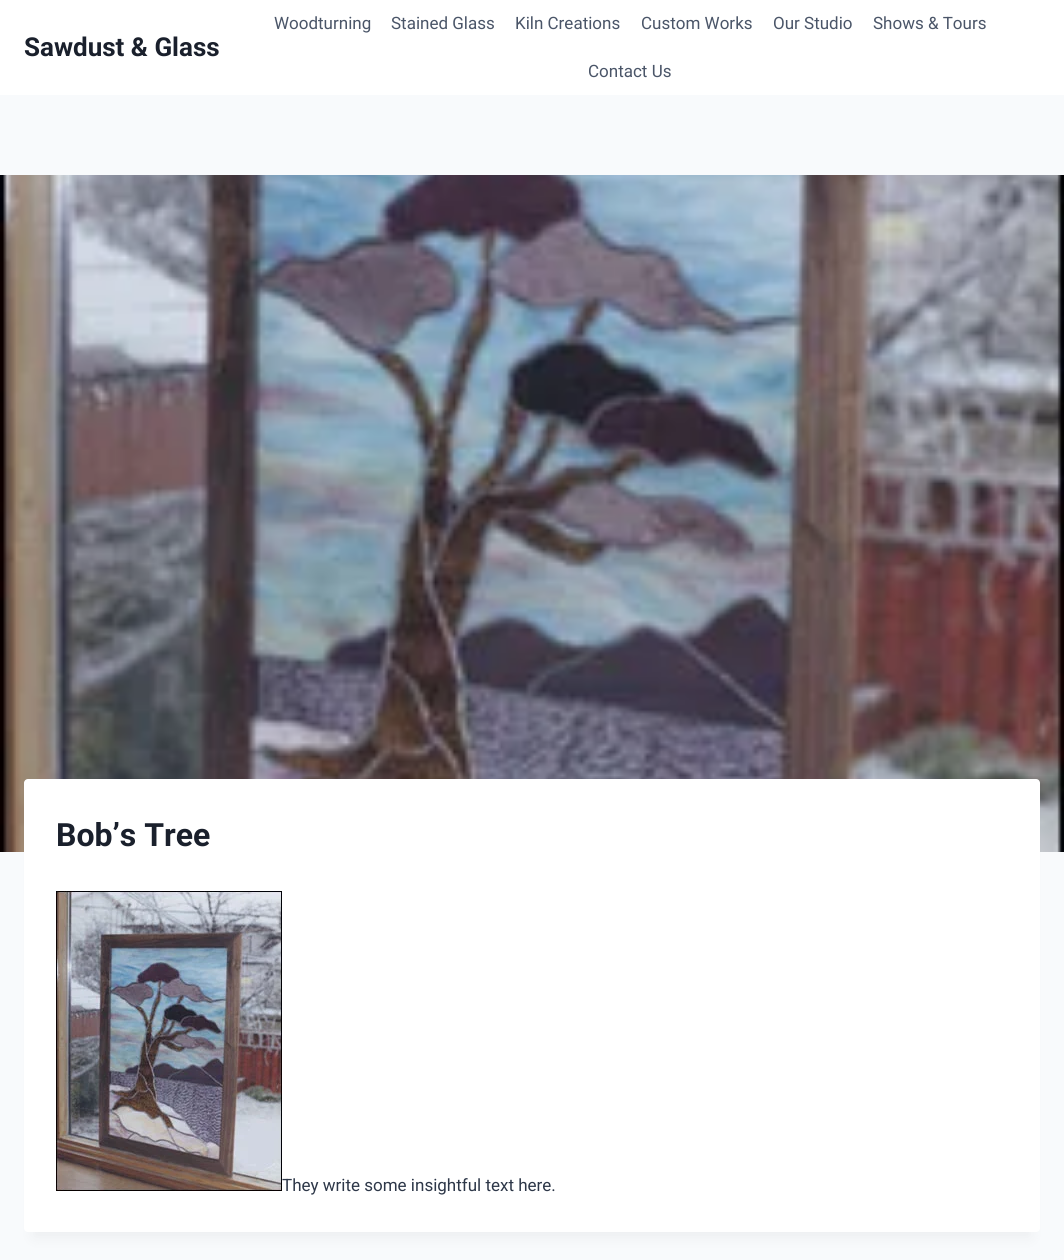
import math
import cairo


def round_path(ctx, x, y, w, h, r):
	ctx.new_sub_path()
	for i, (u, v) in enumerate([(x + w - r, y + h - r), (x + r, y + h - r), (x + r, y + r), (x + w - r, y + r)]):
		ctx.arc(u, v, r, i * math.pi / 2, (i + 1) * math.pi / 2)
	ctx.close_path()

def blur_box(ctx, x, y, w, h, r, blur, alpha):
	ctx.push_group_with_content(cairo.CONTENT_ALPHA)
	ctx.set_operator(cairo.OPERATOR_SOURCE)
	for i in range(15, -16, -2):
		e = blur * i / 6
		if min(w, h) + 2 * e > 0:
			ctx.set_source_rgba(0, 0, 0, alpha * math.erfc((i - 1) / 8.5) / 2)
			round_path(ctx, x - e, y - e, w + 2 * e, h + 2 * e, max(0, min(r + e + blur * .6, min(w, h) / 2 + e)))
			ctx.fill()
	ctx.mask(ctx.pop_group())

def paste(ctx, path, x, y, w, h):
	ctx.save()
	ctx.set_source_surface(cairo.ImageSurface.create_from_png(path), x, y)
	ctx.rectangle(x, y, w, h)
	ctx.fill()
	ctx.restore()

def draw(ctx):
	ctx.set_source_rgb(0.969, 0.98, 0.988)
	ctx.paint()
	ctx.set_source_rgb(1, 1, 1)
	ctx.rectangle(0, 0, 1064, 95)
	ctx.fill()
	ctx.select_font_face('Roboto', cairo.FONT_SLANT_NORMAL, cairo.FONT_WEIGHT_BOLD)
	ctx.set_font_size(26)
	ctx.set_source_rgb(0.102, 0.125, 0.173)
	ctx.move_to(24, 56)
	ctx.show_text('Sawdust & Glass')
	ctx.select_font_face('Roboto')
	ctx.set_font_size(17)
	ctx.set_source_rgb(0.29, 0.333, 0.408)
	for x, y, s in [
		(274, 29, 'Woodturning'),
		(391, 29, 'Stained Glass'),
		(515, 29, 'Kiln Creations'),
		(641, 29, 'Custom Works'),
		(773, 29, 'Our Studio'),
		(873, 29, 'Shows & Tours'),
		(588, 77, 'Contact Us'),
	]:
		ctx.move_to(x, y)
		ctx.show_text(s)
	paste(ctx, 'media/1.png', 0, 175, 1064, 677)
	ctx.set_source_rgb(0, 0, 0)
	blur_box(ctx, 34, 804, 996, 433, 0, 7.5, 0.05)
	ctx.set_source_rgb(1, 1, 1)
	round_path(ctx, 24, 779, 1016, 453, 4)
	ctx.fill()
	ctx.select_font_face('Roboto', cairo.FONT_SLANT_NORMAL, cairo.FONT_WEIGHT_BOLD)
	ctx.set_font_size(32)
	ctx.set_source_rgb(0.102, 0.125, 0.173)
	ctx.move_to(56, 846)
	ctx.show_text('Bob’s Tree')
	paste(ctx, 'media/2.png', 56, 891, 226, 300)
	ctx.select_font_face('Roboto')
	ctx.set_font_size(17)
	ctx.set_source_rgb(0.176, 0.216, 0.282)
	ctx.move_to(282, 1191)
	ctx.show_text('They write some insightful text here.')


surface = cairo.ImageSurface(cairo.FORMAT_RGB24, 1064, 1260)
ctx = cairo.Context(surface)
options = cairo.FontOptions()
options.set_hint_metrics(cairo.HINT_METRICS_OFF)
options.set_hint_style(cairo.HINT_STYLE_NONE)
ctx.set_font_options(options)
ctx.set_miter_limit(4)
draw(ctx)
surface.write_to_png('image.png')
